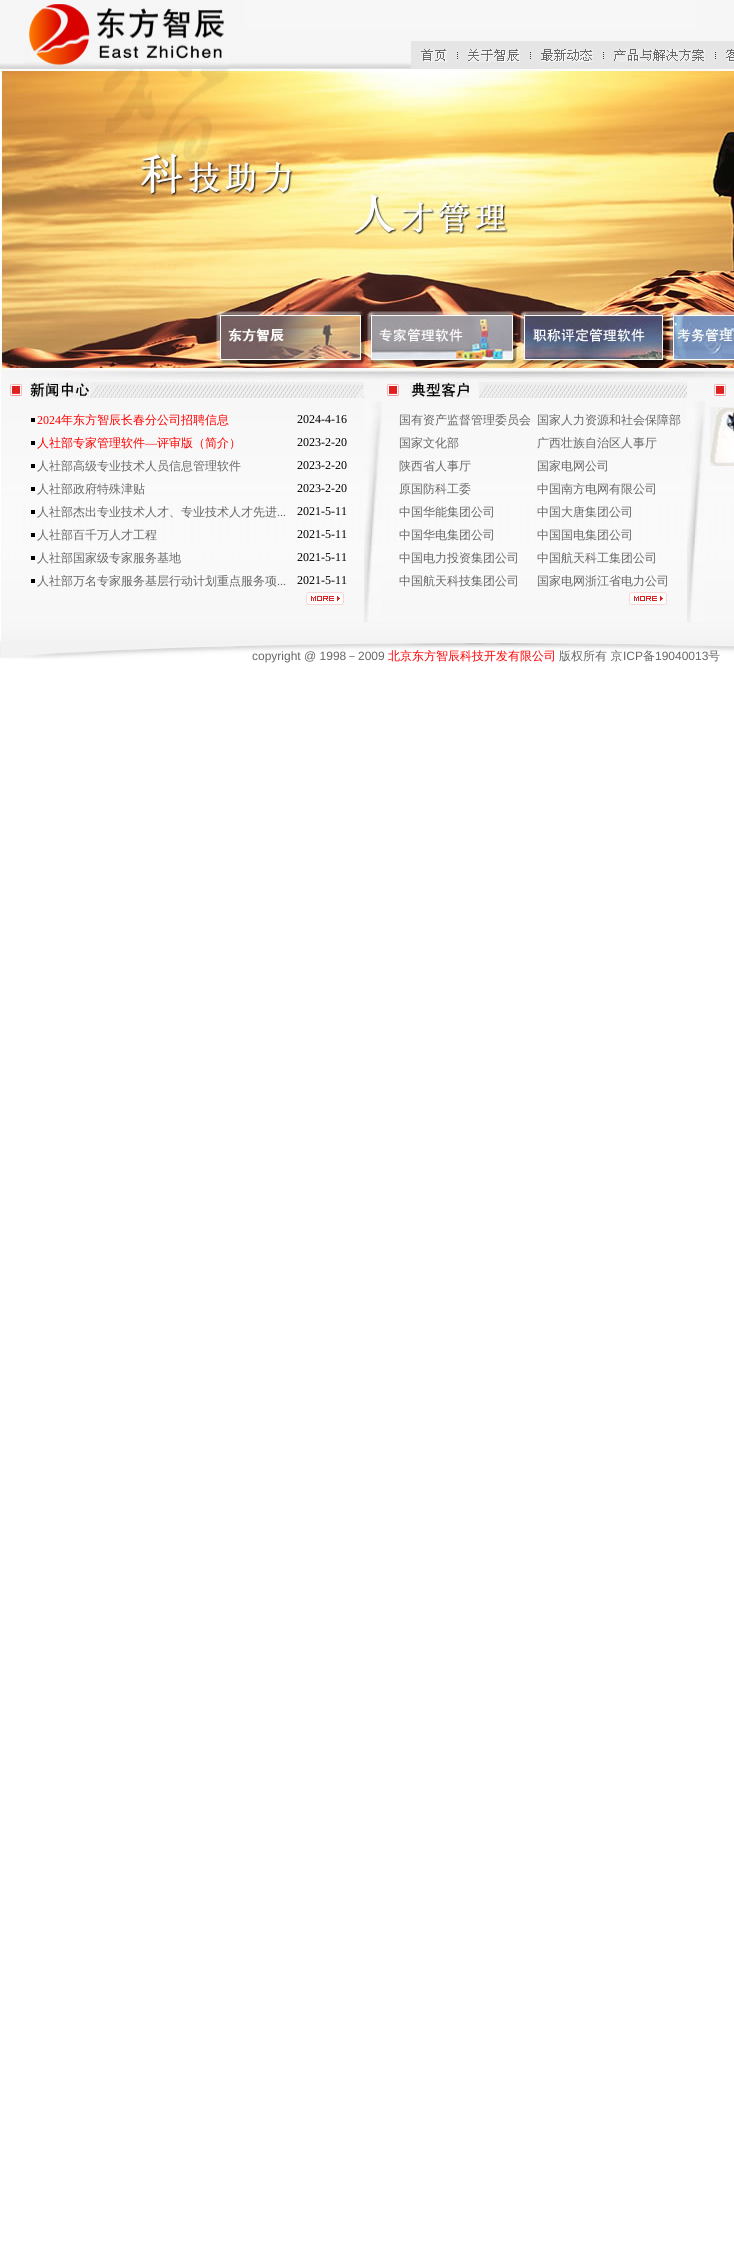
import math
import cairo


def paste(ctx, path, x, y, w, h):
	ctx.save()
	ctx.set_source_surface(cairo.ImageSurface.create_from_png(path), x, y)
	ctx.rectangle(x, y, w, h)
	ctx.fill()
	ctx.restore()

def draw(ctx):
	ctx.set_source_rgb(1, 1, 1)
	ctx.paint()
	paste(ctx, 'media/1.png', 0, 0, 734, 69)
	paste(ctx, 'media/2.png', 40, 65, 165, 2)
	paste(ctx, 'media/3.png', 24, 0, 200, 65)
	ctx.set_source_rgb(0.965, 0.965, 0.965)
	ctx.rectangle(245, 0, 452, 30)
	ctx.fill()
	paste(ctx, 'media/4.png', 230, 30, 504, 39)
	ctx.set_source_rgb(0.898, 0.898, 0.898)
	ctx.rectangle(411, 41, 323, 28)
	ctx.fill()
	paste(ctx, 'media/5.png', 421, 49, 26, 13)
	paste(ctx, 'media/6.png', 457, 49, 1, 13)
	paste(ctx, 'media/7.png', 468, 49, 52, 13)
	paste(ctx, 'media/6.png', 530, 49, 1, 13)
	paste(ctx, 'media/8.png', 541, 49, 52, 13)
	paste(ctx, 'media/6.png', 603, 49, 1, 13)
	paste(ctx, 'media/9.png', 614, 49, 91, 13)
	paste(ctx, 'media/6.png', 715, 49, 1, 13)
	paste(ctx, 'media/10.png', 726, 49, 8, 13)
	paste(ctx, 'media/11.png', 0, 69, 734, 301)
	paste(ctx, 'media/12.png', 0, 370, 734, 12)
	paste(ctx, 'media/13.png', 1, 382, 733, 259)
	paste(ctx, 'media/14.png', 10, 384, 12, 12)
	paste(ctx, 'media/15.png', 30, 382, 59, 16)
	paste(ctx, 'media/16.png', 90, 382, 274, 16)
	ctx.set_source_rgb(0.004, 0.004, 0.004)
	ctx.rectangle(31, 418, 4, 4)
	ctx.fill()
	ctx.select_font_face('Liberation Serif')
	ctx.set_font_size(12)
	ctx.set_source_rgb(1, 0, 0)
	ctx.move_to(37, 424)
	ctx.show_text('2024')
	ctx.select_font_face('WenQuanYi Zen Hei Medium')
	ctx.move_to(61, 424)
	ctx.show_text('年东方智辰长春分公司招聘信息')
	ctx.select_font_face('Liberation Serif')
	ctx.set_source_rgb(0, 0, 0)
	ctx.move_to(297, 423)
	ctx.show_text('2024-4-16')
	ctx.set_source_rgb(0.004, 0.004, 0.004)
	ctx.rectangle(31, 441, 4, 4)
	ctx.fill()
	ctx.select_font_face('WenQuanYi Zen Hei Medium')
	ctx.set_source_rgb(1, 0, 0)
	ctx.move_to(37, 447)
	ctx.show_text('人社部专家管理软件')
	ctx.select_font_face('Liberation Serif')
	ctx.move_to(145, 447)
	ctx.show_text('—')
	ctx.select_font_face('WenQuanYi Zen Hei Medium')
	ctx.move_to(157, 447)
	ctx.show_text('评审版（简介）')
	ctx.select_font_face('Liberation Serif')
	ctx.set_source_rgb(0, 0, 0)
	ctx.move_to(297, 446)
	ctx.show_text('2023-2-20')
	ctx.set_source_rgb(0.004, 0.004, 0.004)
	ctx.rectangle(31, 464, 4, 4)
	ctx.fill()
	ctx.select_font_face('WenQuanYi Zen Hei Medium')
	ctx.set_source_rgb(0.4, 0.4, 0.4)
	ctx.move_to(37, 470)
	ctx.show_text('人社部高级专业技术人员信息管理软件')
	ctx.select_font_face('Liberation Serif')
	ctx.set_source_rgb(0, 0, 0)
	ctx.move_to(297, 469)
	ctx.show_text('2023-2-20')
	ctx.set_source_rgb(0.004, 0.004, 0.004)
	ctx.rectangle(31, 487, 4, 4)
	ctx.fill()
	ctx.select_font_face('WenQuanYi Zen Hei Medium')
	ctx.set_source_rgb(0.4, 0.4, 0.4)
	ctx.move_to(37, 493)
	ctx.show_text('人社部政府特殊津贴')
	ctx.select_font_face('Liberation Serif')
	ctx.set_source_rgb(0, 0, 0)
	ctx.move_to(297, 492)
	ctx.show_text('2023-2-20')
	ctx.set_source_rgb(0.004, 0.004, 0.004)
	ctx.rectangle(31, 510, 4, 4)
	ctx.fill()
	ctx.select_font_face('WenQuanYi Zen Hei Medium')
	ctx.set_source_rgb(0.4, 0.4, 0.4)
	ctx.move_to(37, 516)
	ctx.show_text('人社部杰出专业技术人才、专业技术人才先进')
	ctx.select_font_face('Liberation Serif')
	ctx.move_to(277, 516)
	ctx.show_text('...')
	ctx.set_source_rgb(0, 0, 0)
	ctx.move_to(297, 515)
	ctx.show_text('2021-5-11')
	ctx.set_source_rgb(0.004, 0.004, 0.004)
	ctx.rectangle(31, 533, 4, 4)
	ctx.fill()
	ctx.select_font_face('WenQuanYi Zen Hei Medium')
	ctx.set_source_rgb(0.4, 0.4, 0.4)
	ctx.move_to(37, 539)
	ctx.show_text('人社部百千万人才工程')
	ctx.select_font_face('Liberation Serif')
	ctx.set_source_rgb(0, 0, 0)
	ctx.move_to(297, 538)
	ctx.show_text('2021-5-11')
	ctx.set_source_rgb(0.004, 0.004, 0.004)
	ctx.rectangle(31, 556, 4, 4)
	ctx.fill()
	ctx.select_font_face('WenQuanYi Zen Hei Medium')
	ctx.set_source_rgb(0.4, 0.4, 0.4)
	ctx.move_to(37, 562)
	ctx.show_text('人社部国家级专家服务基地')
	ctx.select_font_face('Liberation Serif')
	ctx.set_source_rgb(0, 0, 0)
	ctx.move_to(297, 561)
	ctx.show_text('2021-5-11')
	ctx.set_source_rgb(0.004, 0.004, 0.004)
	ctx.rectangle(31, 579, 4, 4)
	ctx.fill()
	ctx.select_font_face('WenQuanYi Zen Hei Medium')
	ctx.set_source_rgb(0.4, 0.4, 0.4)
	ctx.move_to(37, 585)
	ctx.show_text('人社部万名专家服务基层行动计划重点服务项')
	ctx.select_font_face('Liberation Serif')
	ctx.move_to(277, 585)
	ctx.show_text('...')
	ctx.set_source_rgb(0, 0, 0)
	ctx.move_to(297, 584)
	ctx.show_text('2021-5-11')
	paste(ctx, 'media/17.png', 306, 592, 38, 13)
	paste(ctx, 'media/18.png', 364, 401, 18, 221)
	paste(ctx, 'media/14.png', 387, 384, 12, 12)
	paste(ctx, 'media/19.png', 410, 382, 59, 16)
	paste(ctx, 'media/20.png', 479, 382, 208, 16)
	ctx.select_font_face('WenQuanYi Zen Hei Medium')
	ctx.set_source_rgb(0.4, 0.4, 0.4)
	for x, y, s in [
		(399, 424, '国有资产监督管理委员会'),
		(537, 424, '国家人力资源和社会保障部'),
		(399, 447, '国家文化部'),
		(537, 447, '广西壮族自治区人事厅'),
		(399, 470, '陕西省人事厅'),
		(537, 470, '国家电网公司'),
		(399, 493, '原国防科工委'),
		(537, 493, '中国南方电网有限公司'),
		(399, 516, '中国华能集团公司'),
		(537, 516, '中国大唐集团公司'),
		(399, 539, '中国华电集团公司'),
		(537, 539, '中国国电集团公司'),
		(399, 562, '中国电力投资集团公司'),
		(537, 562, '中国航天科工集团公司'),
		(399, 585, '中国航天科技集团公司'),
		(537, 585, '国家电网浙江省电力公司'),
	]:
		ctx.move_to(x, y)
		ctx.show_text(s)
	paste(ctx, 'media/17.png', 629, 592, 38, 13)
	paste(ctx, 'media/18.png', 687, 401, 18, 221)
	paste(ctx, 'media/14.png', 714, 384, 12, 12)
	paste(ctx, 'media/21.png', 710, 407, 24, 59)
	paste(ctx, 'media/22.png', 0, 641, 734, 18)
	ctx.select_font_face('Liberation Sans')
	ctx.move_to(252, 660)
	ctx.show_text('copyright @ 1998')
	ctx.select_font_face('WenQuanYi Zen Hei Medium')
	ctx.move_to(346, 660)
	ctx.show_text('－')
	ctx.select_font_face('Liberation Sans')
	ctx.move_to(358, 660)
	ctx.show_text('2009')
	ctx.select_font_face('WenQuanYi Zen Hei Medium')
	ctx.set_source_rgb(1, 0, 0)
	ctx.move_to(388, 660)
	ctx.show_text('北京东方智辰科技开发有限公司')
	ctx.set_source_rgb(0.4, 0.4, 0.4)
	ctx.move_to(559, 660)
	ctx.show_text('版权所有 京')
	ctx.select_font_face('Liberation Sans')
	ctx.move_to(623, 660)
	ctx.show_text('ICP')
	ctx.select_font_face('WenQuanYi Zen Hei Medium')
	ctx.move_to(643, 660)
	ctx.show_text('备')
	ctx.select_font_face('Liberation Sans')
	ctx.move_to(655, 660)
	ctx.show_text('19040013')
	ctx.select_font_face('WenQuanYi Zen Hei Medium')
	ctx.move_to(708, 660)
	ctx.show_text('号')


surface = cairo.ImageSurface(cairo.FORMAT_RGB24, 734, 2254)
ctx = cairo.Context(surface)
options = cairo.FontOptions()
options.set_hint_metrics(cairo.HINT_METRICS_OFF)
options.set_hint_style(cairo.HINT_STYLE_NONE)
ctx.set_font_options(options)
ctx.set_miter_limit(4)
draw(ctx)
surface.write_to_png('image.png')
